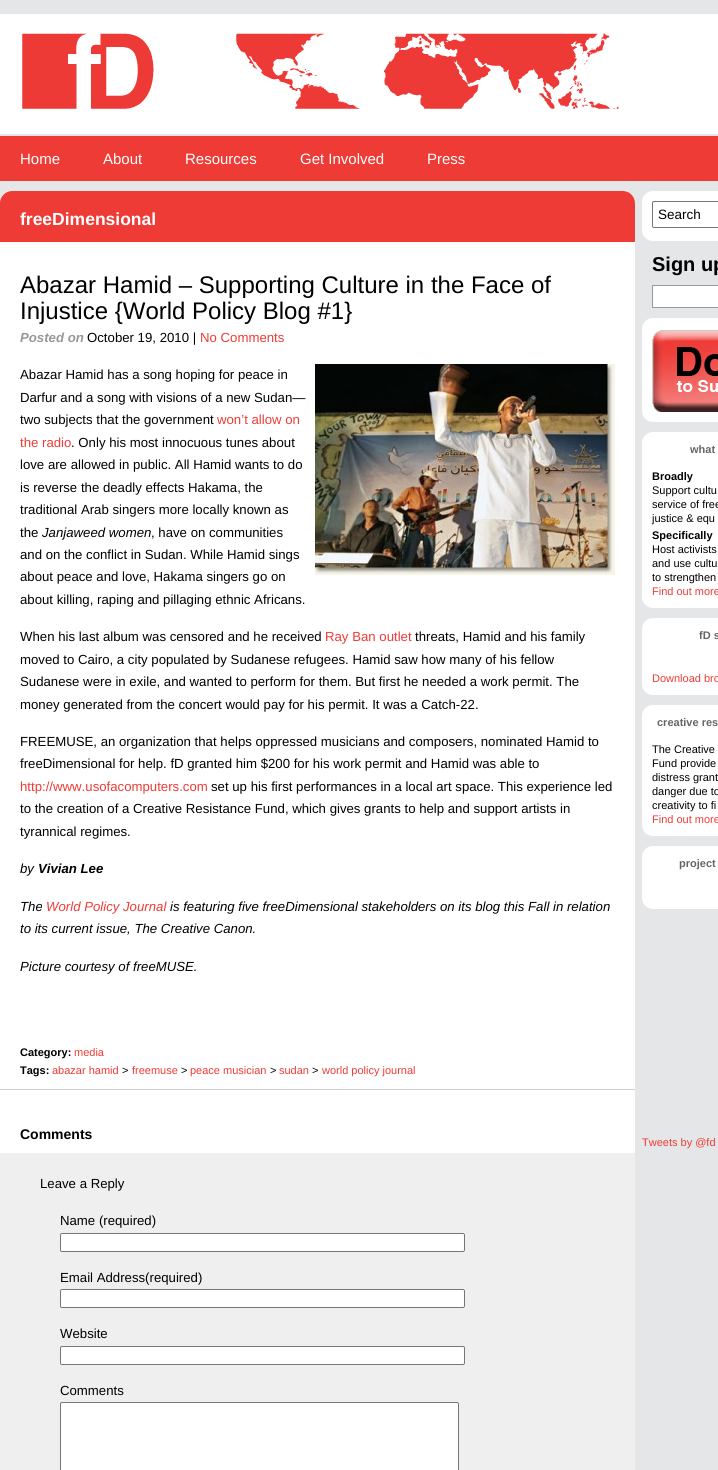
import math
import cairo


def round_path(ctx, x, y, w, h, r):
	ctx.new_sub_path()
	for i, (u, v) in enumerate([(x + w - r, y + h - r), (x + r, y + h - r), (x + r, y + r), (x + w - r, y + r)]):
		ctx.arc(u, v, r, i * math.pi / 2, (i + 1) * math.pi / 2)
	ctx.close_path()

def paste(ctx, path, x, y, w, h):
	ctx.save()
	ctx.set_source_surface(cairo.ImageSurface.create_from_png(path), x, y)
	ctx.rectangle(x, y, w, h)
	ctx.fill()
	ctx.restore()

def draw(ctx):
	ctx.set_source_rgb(0.898, 0.902, 0.91)
	ctx.paint()
	ctx.set_source_rgb(1, 1, 1)
	ctx.rectangle(0, 14, 718, 120)
	ctx.fill()
	paste(ctx, 'media/1.png', 22, 33, 597, 76)
	ctx.set_source_rgb(0.933, 0.231, 0.212)
	ctx.rectangle(0, 136, 718, 45)
	ctx.fill()
	ctx.select_font_face('Liberation Sans')
	ctx.set_font_size(15)
	ctx.set_source_rgb(1, 1, 1)
	for x, y, s in [
		(20, 164, 'Home'),
		(103, 164, 'About'),
		(185, 164, 'Resources'),
		(300, 164, 'Get Involved'),
		(427, 164, 'Press'),
	]:
		ctx.move_to(x, y)
		ctx.show_text(s)
	round_path(ctx, 0, 191, 635, 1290, 11)
	ctx.fill()
	ctx.set_source_rgb(0.933, 0.231, 0.212)
	ctx.new_path()
	ctx.move_to(12, 191)
	ctx.line_to(623, 191)
	ctx.curve_to(629.5, 191, 635, 196.5, 635, 203)
	ctx.line_to(635, 242)
	ctx.line_to(0, 242)
	ctx.line_to(0, 203)
	ctx.curve_to(0, 196.5, 5.5, 191, 12, 191)
	ctx.close_path()
	ctx.fill()
	ctx.select_font_face('Liberation Sans', cairo.FONT_SLANT_NORMAL, cairo.FONT_WEIGHT_BOLD)
	ctx.set_font_size(17.5)
	ctx.set_source_rgb(1, 1, 1)
	ctx.move_to(20, 225)
	ctx.show_text('freeDimensional')
	ctx.select_font_face('Liberation Sans')
	ctx.set_font_size(24)
	ctx.set_source_rgb(0, 0, 0)
	ctx.move_to(20, 293)
	ctx.show_text('Abazar Hamid – Supporting Culture in the Face of')
	ctx.move_to(20, 319)
	ctx.show_text('Injustice {World Policy Blog #1}')
	ctx.select_font_face('Liberation Sans', cairo.FONT_SLANT_ITALIC, cairo.FONT_WEIGHT_BOLD)
	ctx.set_font_size(13.2)
	ctx.set_source_rgb(0.596, 0.596, 0.596)
	ctx.move_to(20, 342)
	ctx.show_text('Posted on')
	ctx.select_font_face('Liberation Sans')
	ctx.set_source_rgb(0, 0, 0)
	ctx.move_to(87, 342)
	ctx.show_text('October 19, 2010 |')
	ctx.set_source_rgb(0.933, 0.231, 0.212)
	ctx.move_to(200, 342)
	ctx.show_text('No Comments')
	ctx.set_source_rgb(0, 0, 0)
	ctx.move_to(20, 379)
	ctx.show_text('Abazar Hamid has a song hoping for peace in')
	paste(ctx, 'media/2.png', 315, 364, 300, 211)
	ctx.move_to(20, 402)
	ctx.show_text('Darfur and a song with visions of a new Sudan—')
	ctx.move_to(20, 424)
	ctx.show_text('two subjects that the government')
	ctx.set_source_rgb(0.933, 0.231, 0.212)
	ctx.move_to(217, 424)
	ctx.show_text('won’t allow on')
	ctx.move_to(20, 447)
	ctx.show_text('the radio')
	ctx.set_source_rgb(0, 0, 0)
	for x, y, s in [
		(71, 447, '. Only his most innocuous tunes about'),
		(20, 469, 'love are allowed in public. All Hamid wants to do'),
		(20, 492, 'is reverse the deadly effects Hakama, the'),
		(20, 514, 'traditional Arab singers more locally known as'),
		(20, 537, 'the'),
	]:
		ctx.move_to(x, y)
		ctx.show_text(s)
	ctx.select_font_face('Liberation Sans', cairo.FONT_SLANT_ITALIC)
	ctx.move_to(42, 537)
	ctx.show_text('Janjaweed women')
	ctx.select_font_face('Liberation Sans')
	for x, y, s in [
		(151, 537, ', have on communities'),
		(20, 559, 'and on the conflict in Sudan. While Hamid sings'),
		(20, 581, 'about peace and love, Hakama singers go on'),
		(20, 604, 'about killing, raping and pillaging ethnic Africans.'),
		(20, 641, 'When his last album was censored and he received'),
	]:
		ctx.move_to(x, y)
		ctx.show_text(s)
	ctx.set_source_rgb(0.933, 0.231, 0.212)
	ctx.move_to(325, 641)
	ctx.show_text('Ray Ban outlet')
	ctx.set_source_rgb(0, 0, 0)
	for x, y, s in [
		(415, 641, 'threats, Hamid and his family'),
		(20, 664, 'moved to Cairo, a city populated by Sudanese refugees. Hamid saw how many of his fellow'),
		(20, 686, 'Sudanese were in exile, and wanted to perform for them. But first he needed a work permit. The'),
		(20, 709, 'money generated from the concert would pay for his permit. It was a Catch-22.'),
		(20, 746, 'FREEMUSE, an organization that helps oppressed musicians and composers, nominated Hamid to'),
		(20, 768, 'freeDimensional for help. fD granted him $200 for his work permit and Hamid was able to'),
	]:
		ctx.move_to(x, y)
		ctx.show_text(s)
	ctx.set_source_rgb(0.933, 0.231, 0.212)
	ctx.move_to(20, 791)
	ctx.show_text('http://www.usofacomputers.com')
	ctx.set_source_rgb(0, 0, 0)
	for x, y, s in [
		(211, 791, 'set up his first performances in a local art space. This experience led'),
		(20, 813, 'to the creation of a Creative Resistance Fund, which gives grants to help and support artists in'),
		(20, 836, 'tyrannical regimes.'),
	]:
		ctx.move_to(x, y)
		ctx.show_text(s)
	ctx.select_font_face('Liberation Sans', cairo.FONT_SLANT_ITALIC)
	ctx.move_to(20, 873)
	ctx.show_text('by')
	ctx.select_font_face('Liberation Sans', cairo.FONT_SLANT_ITALIC, cairo.FONT_WEIGHT_BOLD)
	ctx.move_to(38, 873)
	ctx.show_text('Vivian Lee')
	ctx.select_font_face('Liberation Sans', cairo.FONT_SLANT_ITALIC)
	ctx.move_to(20, 911)
	ctx.show_text('The')
	ctx.set_source_rgb(0.933, 0.231, 0.212)
	ctx.move_to(46, 911)
	ctx.show_text('World Policy Journal')
	ctx.set_source_rgb(0, 0, 0)
	for x, y, s in [
		(170, 911, 'is featuring five freeDimensional stakeholders on its blog this Fall in relation'),
		(20, 933, 'to its current issue, The Creative Canon.'),
		(20, 971, 'Picture courtesy of freeMUSE.'),
	]:
		ctx.move_to(x, y)
		ctx.show_text(s)
	ctx.set_source_rgb(0.8, 0.8, 0.8)
	ctx.rectangle(0, 1089, 635, 1)
	ctx.fill()
	ctx.select_font_face('Liberation Sans', cairo.FONT_SLANT_NORMAL, cairo.FONT_WEIGHT_BOLD)
	ctx.set_font_size(11)
	ctx.set_source_rgb(0, 0, 0)
	ctx.move_to(20, 1056)
	ctx.show_text('Category:')
	ctx.select_font_face('Liberation Sans')
	ctx.set_source_rgb(0.933, 0.231, 0.212)
	ctx.move_to(74, 1056)
	ctx.show_text('media')
	ctx.select_font_face('Liberation Sans', cairo.FONT_SLANT_NORMAL, cairo.FONT_WEIGHT_BOLD)
	ctx.set_source_rgb(0, 0, 0)
	ctx.move_to(20, 1074)
	ctx.show_text('Tags:')
	ctx.select_font_face('Liberation Sans')
	ctx.set_source_rgb(0.933, 0.231, 0.212)
	ctx.move_to(52, 1074)
	ctx.show_text('abazar hamid')
	ctx.set_source_rgb(0, 0, 0)
	ctx.move_to(122, 1074)
	ctx.show_text('>')
	ctx.set_source_rgb(0.933, 0.231, 0.212)
	ctx.move_to(132, 1074)
	ctx.show_text('freemuse')
	ctx.set_source_rgb(0, 0, 0)
	ctx.move_to(181, 1074)
	ctx.show_text('>')
	ctx.set_source_rgb(0.933, 0.231, 0.212)
	ctx.move_to(190, 1074)
	ctx.show_text('peace musician')
	ctx.set_source_rgb(0, 0, 0)
	ctx.move_to(270, 1074)
	ctx.show_text('>')
	ctx.set_source_rgb(0.933, 0.231, 0.212)
	ctx.move_to(279, 1074)
	ctx.show_text('sudan')
	ctx.set_source_rgb(0, 0, 0)
	ctx.move_to(312, 1074)
	ctx.show_text('>')
	ctx.set_source_rgb(0.933, 0.231, 0.212)
	ctx.move_to(322, 1074)
	ctx.show_text('world policy journal')
	ctx.select_font_face('Liberation Sans', cairo.FONT_SLANT_NORMAL, cairo.FONT_WEIGHT_BOLD)
	ctx.set_font_size(14)
	ctx.set_source_rgb(0, 0, 0)
	ctx.move_to(20, 1139)
	ctx.show_text('Comments')
	ctx.set_source_rgb(0.937, 0.937, 0.937)
	ctx.rectangle(0, 1153, 635, 317)
	ctx.fill()
	ctx.select_font_face('Liberation Sans')
	ctx.set_font_size(13.2)
	ctx.set_source_rgb(0, 0, 0)
	ctx.move_to(40, 1188)
	ctx.show_text('Leave a Reply')
	ctx.move_to(60, 1225)
	ctx.show_text('Name (required)')
	ctx.set_source_rgb(1, 1, 1)
	round_path(ctx, 60.5, 1233.5, 404, 18, 1.5)
	ctx.fill_preserve()
	ctx.set_source_rgb(0.463, 0.463, 0.463)
	ctx.set_line_width(1)
	ctx.stroke()
	ctx.set_source_rgb(0, 0, 0)
	ctx.move_to(60, 1282)
	ctx.show_text('Email Address(required)')
	ctx.set_source_rgb(1, 1, 1)
	round_path(ctx, 60.5, 1289.5, 404, 18, 1.5)
	ctx.fill_preserve()
	ctx.set_source_rgb(0.463, 0.463, 0.463)
	ctx.stroke()
	ctx.set_source_rgb(0, 0, 0)
	ctx.move_to(60, 1338)
	ctx.show_text('Website')
	ctx.set_source_rgb(1, 1, 1)
	round_path(ctx, 60.5, 1346.5, 404, 18, 1.5)
	ctx.fill_preserve()
	ctx.set_source_rgb(0.463, 0.463, 0.463)
	ctx.stroke()
	ctx.set_source_rgb(0, 0, 0)
	ctx.move_to(60, 1395)
	ctx.show_text('Comments')
	ctx.set_source_rgb(1, 1, 1)
	round_path(ctx, 60.5, 1402.5, 398, 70, 1.5)
	ctx.fill_preserve()
	ctx.set_source_rgb(0.463, 0.463, 0.463)
	ctx.stroke()
	ctx.set_source_rgb(1, 1, 1)
	round_path(ctx, 642, 191, 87, 50, 11)
	ctx.fill()
	round_path(ctx, 652.5, 201.5, 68, 26, 1.5)
	ctx.set_source_rgb(0.463, 0.463, 0.463)
	ctx.stroke()
	ctx.set_font_size(13.5)
	ctx.set_source_rgb(0, 0, 0)
	ctx.move_to(658, 219)
	ctx.show_text('Search')
	ctx.select_font_face('Liberation Sans', cairo.FONT_SLANT_NORMAL, cairo.FONT_WEIGHT_BOLD)
	ctx.set_font_size(20)
	ctx.move_to(652, 271)
	ctx.show_text('Sign up')
	ctx.set_source_rgb(1, 1, 1)
	ctx.rectangle(652.5, 285.5, 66, 22)
	ctx.fill_preserve()
	ctx.set_source_rgb(0.6, 0.6, 0.6)
	ctx.stroke()
	ctx.set_source_rgb(1, 1, 1)
	round_path(ctx, 642, 318, 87, 104, 11)
	ctx.fill()
	paste(ctx, 'media/3.png', 652, 330, 66, 82)
	round_path(ctx, 642, 432, 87, 176, 11)
	ctx.fill()
	ctx.set_font_size(11)
	ctx.set_source_rgb(0.4, 0.4, 0.4)
	ctx.move_to(690, 453)
	ctx.show_text('what')
	ctx.set_source_rgb(0, 0, 0)
	ctx.move_to(652, 480)
	ctx.show_text('Broadly')
	ctx.select_font_face('Liberation Sans')
	for x, y, s in [
		(652, 494, 'Support cultu'),
		(652, 508, 'service of free'),
		(652, 522, 'justice & equ'),
	]:
		ctx.move_to(x, y)
		ctx.show_text(s)
	ctx.select_font_face('Liberation Sans', cairo.FONT_SLANT_NORMAL, cairo.FONT_WEIGHT_BOLD)
	ctx.move_to(652, 539)
	ctx.show_text('Specifically')
	ctx.select_font_face('Liberation Sans')
	for x, y, s in [
		(652, 553, 'Host activists'),
		(652, 567, 'and use cultu'),
		(652, 581, 'to strengthen'),
	]:
		ctx.move_to(x, y)
		ctx.show_text(s)
	ctx.set_source_rgb(0.933, 0.231, 0.212)
	ctx.move_to(652, 595)
	ctx.show_text('Find out more')
	ctx.set_source_rgb(1, 1, 1)
	round_path(ctx, 642, 618, 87, 77, 11)
	ctx.fill()
	ctx.select_font_face('Liberation Sans', cairo.FONT_SLANT_NORMAL, cairo.FONT_WEIGHT_BOLD)
	ctx.set_source_rgb(0.4, 0.4, 0.4)
	ctx.move_to(699, 639)
	ctx.show_text('fD s')
	ctx.select_font_face('Liberation Sans')
	ctx.set_source_rgb(0.933, 0.231, 0.212)
	ctx.move_to(652, 682)
	ctx.show_text('Download bro')
	ctx.set_source_rgb(1, 1, 1)
	round_path(ctx, 642, 705, 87, 131, 11)
	ctx.fill()
	ctx.select_font_face('Liberation Sans', cairo.FONT_SLANT_NORMAL, cairo.FONT_WEIGHT_BOLD)
	ctx.set_source_rgb(0.4, 0.4, 0.4)
	ctx.move_to(657, 726)
	ctx.show_text('creative res')
	ctx.select_font_face('Liberation Sans')
	ctx.set_source_rgb(0, 0, 0)
	for x, y, s in [
		(652, 753, 'The Creative'),
		(652, 767, 'Fund provide'),
		(652, 781, 'distress grant'),
		(652, 795, 'danger due to'),
		(652, 809, 'creativity to fi'),
	]:
		ctx.move_to(x, y)
		ctx.show_text(s)
	ctx.set_source_rgb(0.933, 0.231, 0.212)
	ctx.move_to(652, 823)
	ctx.show_text('Find out more')
	ctx.set_source_rgb(1, 1, 1)
	round_path(ctx, 642, 846, 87, 63, 11)
	ctx.fill()
	ctx.select_font_face('Liberation Sans', cairo.FONT_SLANT_NORMAL, cairo.FONT_WEIGHT_BOLD)
	ctx.set_source_rgb(0.4, 0.4, 0.4)
	ctx.move_to(679, 867)
	ctx.show_text('project')
	ctx.select_font_face('Liberation Sans')
	ctx.set_source_rgb(0.933, 0.231, 0.212)
	ctx.move_to(642, 1146)
	ctx.show_text('Tweets by @fd')


surface = cairo.ImageSurface(cairo.FORMAT_RGB24, 718, 1470)
ctx = cairo.Context(surface)
options = cairo.FontOptions()
options.set_hint_metrics(cairo.HINT_METRICS_OFF)
options.set_hint_style(cairo.HINT_STYLE_NONE)
ctx.set_font_options(options)
ctx.set_miter_limit(4)
draw(ctx)
surface.write_to_png('image.png')
